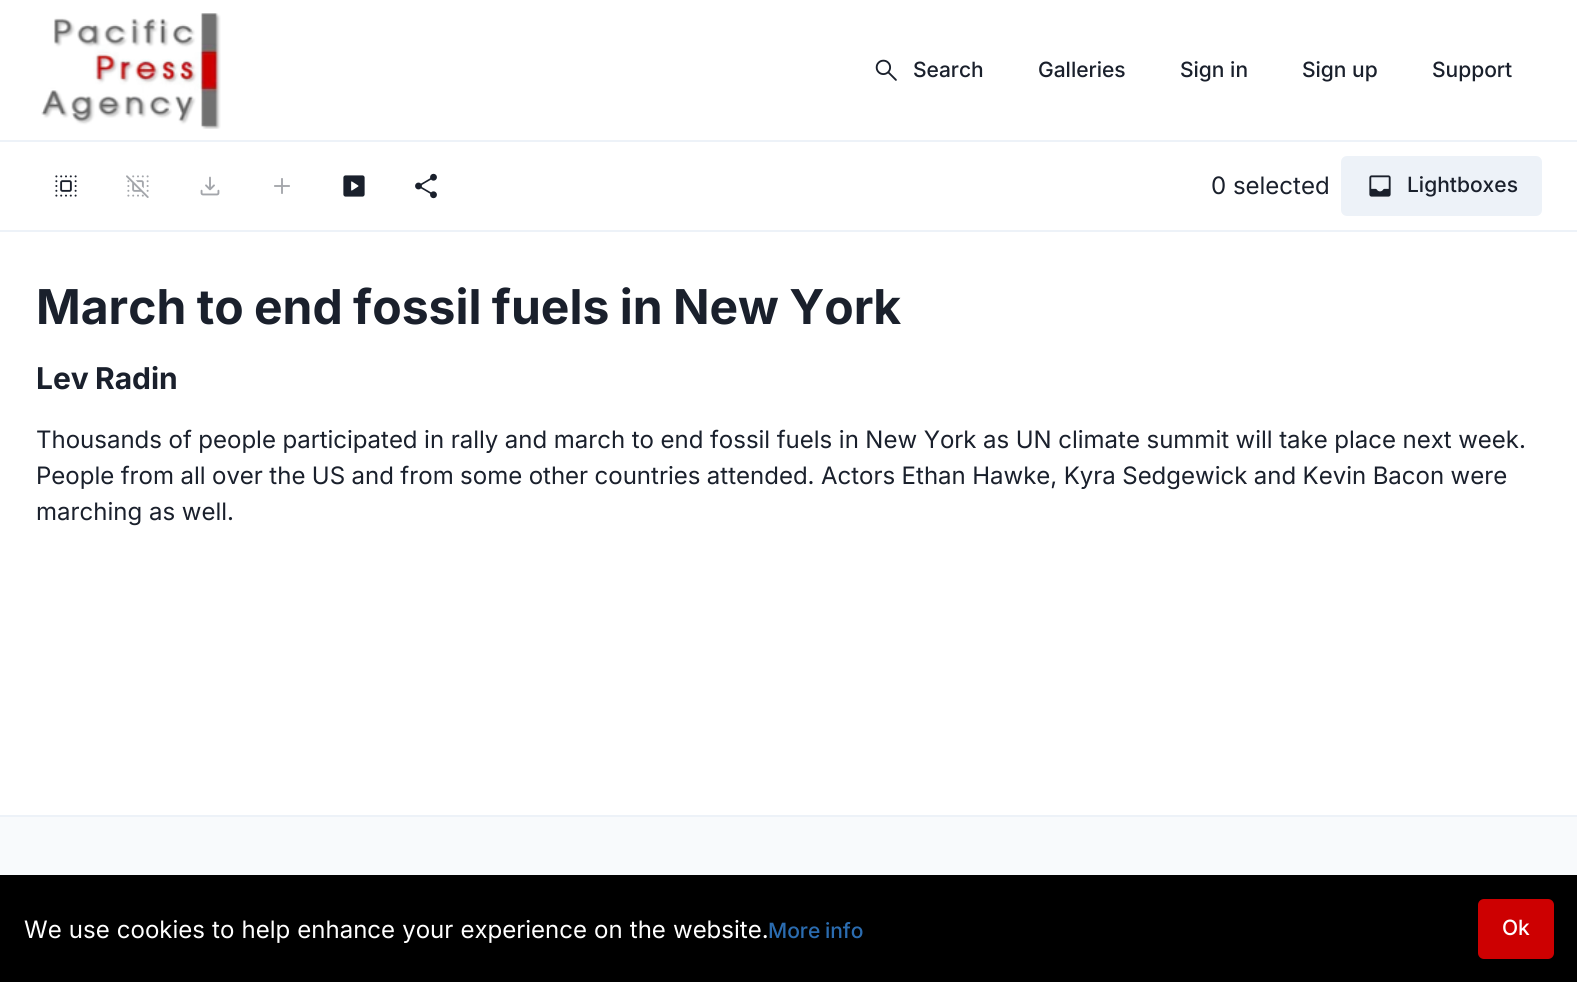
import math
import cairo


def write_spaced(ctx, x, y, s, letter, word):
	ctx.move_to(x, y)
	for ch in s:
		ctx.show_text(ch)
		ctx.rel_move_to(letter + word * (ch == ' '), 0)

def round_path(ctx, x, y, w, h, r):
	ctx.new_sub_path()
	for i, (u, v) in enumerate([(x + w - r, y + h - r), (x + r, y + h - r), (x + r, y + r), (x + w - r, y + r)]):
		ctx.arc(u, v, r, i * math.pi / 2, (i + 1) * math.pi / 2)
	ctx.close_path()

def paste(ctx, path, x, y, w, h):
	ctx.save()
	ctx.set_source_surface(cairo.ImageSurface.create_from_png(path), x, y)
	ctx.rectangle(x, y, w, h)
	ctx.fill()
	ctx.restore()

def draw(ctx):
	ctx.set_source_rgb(1, 1, 1)
	ctx.paint()
	ctx.set_source_rgb(0.929, 0.949, 0.969)
	ctx.rectangle(0, 140, 1577, 2)
	ctx.fill()
	paste(ctx, 'media/1.png', 41, 13, 180, 116)
	paste(ctx, 'media/2.png', 875, 59, 22, 22)
	ctx.select_font_face('Inter Medium')
	ctx.set_font_size(21)
	ctx.set_source_rgb(0.102, 0.125, 0.173)
	for x, y, s in [
		(913, 77, 'Search'),
		(1038, 77, 'Galleries'),
		(1180, 77, 'Sign in'),
		(1302, 77, 'Sign up'),
		(1432, 77, 'Support'),
	]:
		ctx.move_to(x, y)
		ctx.show_text(s)
	ctx.set_source_rgb(0.929, 0.949, 0.969)
	ctx.rectangle(0, 230, 1577, 2)
	ctx.fill()
	paste(ctx, 'media/3.png', 55, 175, 22, 22)
	paste(ctx, 'media/4.png', 126, 175, 23, 23)
	paste(ctx, 'media/5.png', 200, 176, 20, 20)
	paste(ctx, 'media/6.png', 274, 178, 16, 16)
	paste(ctx, 'media/7.png', 343, 175, 22, 22)
	paste(ctx, 'media/8.png', 415, 173, 22, 26)
	ctx.select_font_face('Inter')
	ctx.set_font_size(24)
	ctx.set_source_rgb(0.102, 0.125, 0.173)
	ctx.move_to(1211, 194)
	ctx.show_text('0 selected')
	ctx.set_source_rgb(0.929, 0.949, 0.969)
	round_path(ctx, 1341, 156, 201, 60, 6)
	ctx.fill()
	paste(ctx, 'media/9.png', 1369, 175, 22, 22)
	ctx.select_font_face('Inter Medium')
	ctx.set_font_size(21)
	ctx.set_source_rgb(0.102, 0.125, 0.173)
	ctx.move_to(1407, 192)
	ctx.show_text('Lightboxes')
	ctx.select_font_face('Inter', cairo.FONT_SLANT_NORMAL, cairo.FONT_WEIGHT_BOLD)
	ctx.set_font_size(48)
	write_spaced(ctx, 36, 324, 'March to end fossil fuels in New York', 0, -1)
	ctx.set_font_size(30)
	write_spaced(ctx, 36, 389, 'Lev Radin', 0, -1)
	ctx.select_font_face('Inter')
	ctx.set_font_size(24)
	write_spaced(ctx, 36, 448, 'Thousands of people participated in rally and march to end fossil fuels in New York as UN climate summit will take place next week.', 0, -0.2)
	write_spaced(ctx, 36, 484, 'People from all over the US and from some other countries attended. Actors Ethan Hawke, Kyra Sedgewick and Kevin Bacon were', 0, -0.3)
	ctx.move_to(36, 520)
	ctx.show_text('marching as well.')
	ctx.set_source_rgb(0.969, 0.98, 0.988)
	ctx.rectangle(0, 817, 1577, 58)
	ctx.fill()
	ctx.set_source_rgb(0.929, 0.949, 0.969)
	ctx.rectangle(0, 815, 1577, 2)
	ctx.fill()
	ctx.set_source_rgb(0, 0, 0)
	ctx.rectangle(0, 875, 1577, 107)
	ctx.fill()
	ctx.set_source_rgb(1, 1, 1)
	write_spaced(ctx, 24, 938, 'We use cookies to help enhance your experience on the website.', 0, 0.4)
	ctx.select_font_face('Inter Medium')
	ctx.set_font_size(21)
	ctx.set_source_rgb(0.169, 0.424, 0.69)
	write_spaced(ctx, 768, 938, 'More info', 0, -1)
	ctx.set_source_rgb(0.804, 0, 0.004)
	round_path(ctx, 1478, 899, 76, 60, 6)
	ctx.fill()
	ctx.set_source_rgb(1, 1, 1)
	ctx.move_to(1502, 935)
	ctx.show_text('Ok')


surface = cairo.ImageSurface(cairo.FORMAT_RGB24, 1577, 982)
ctx = cairo.Context(surface)
options = cairo.FontOptions()
options.set_hint_metrics(cairo.HINT_METRICS_OFF)
options.set_hint_style(cairo.HINT_STYLE_NONE)
ctx.set_font_options(options)
ctx.set_miter_limit(4)
draw(ctx)
surface.write_to_png('image.png')
